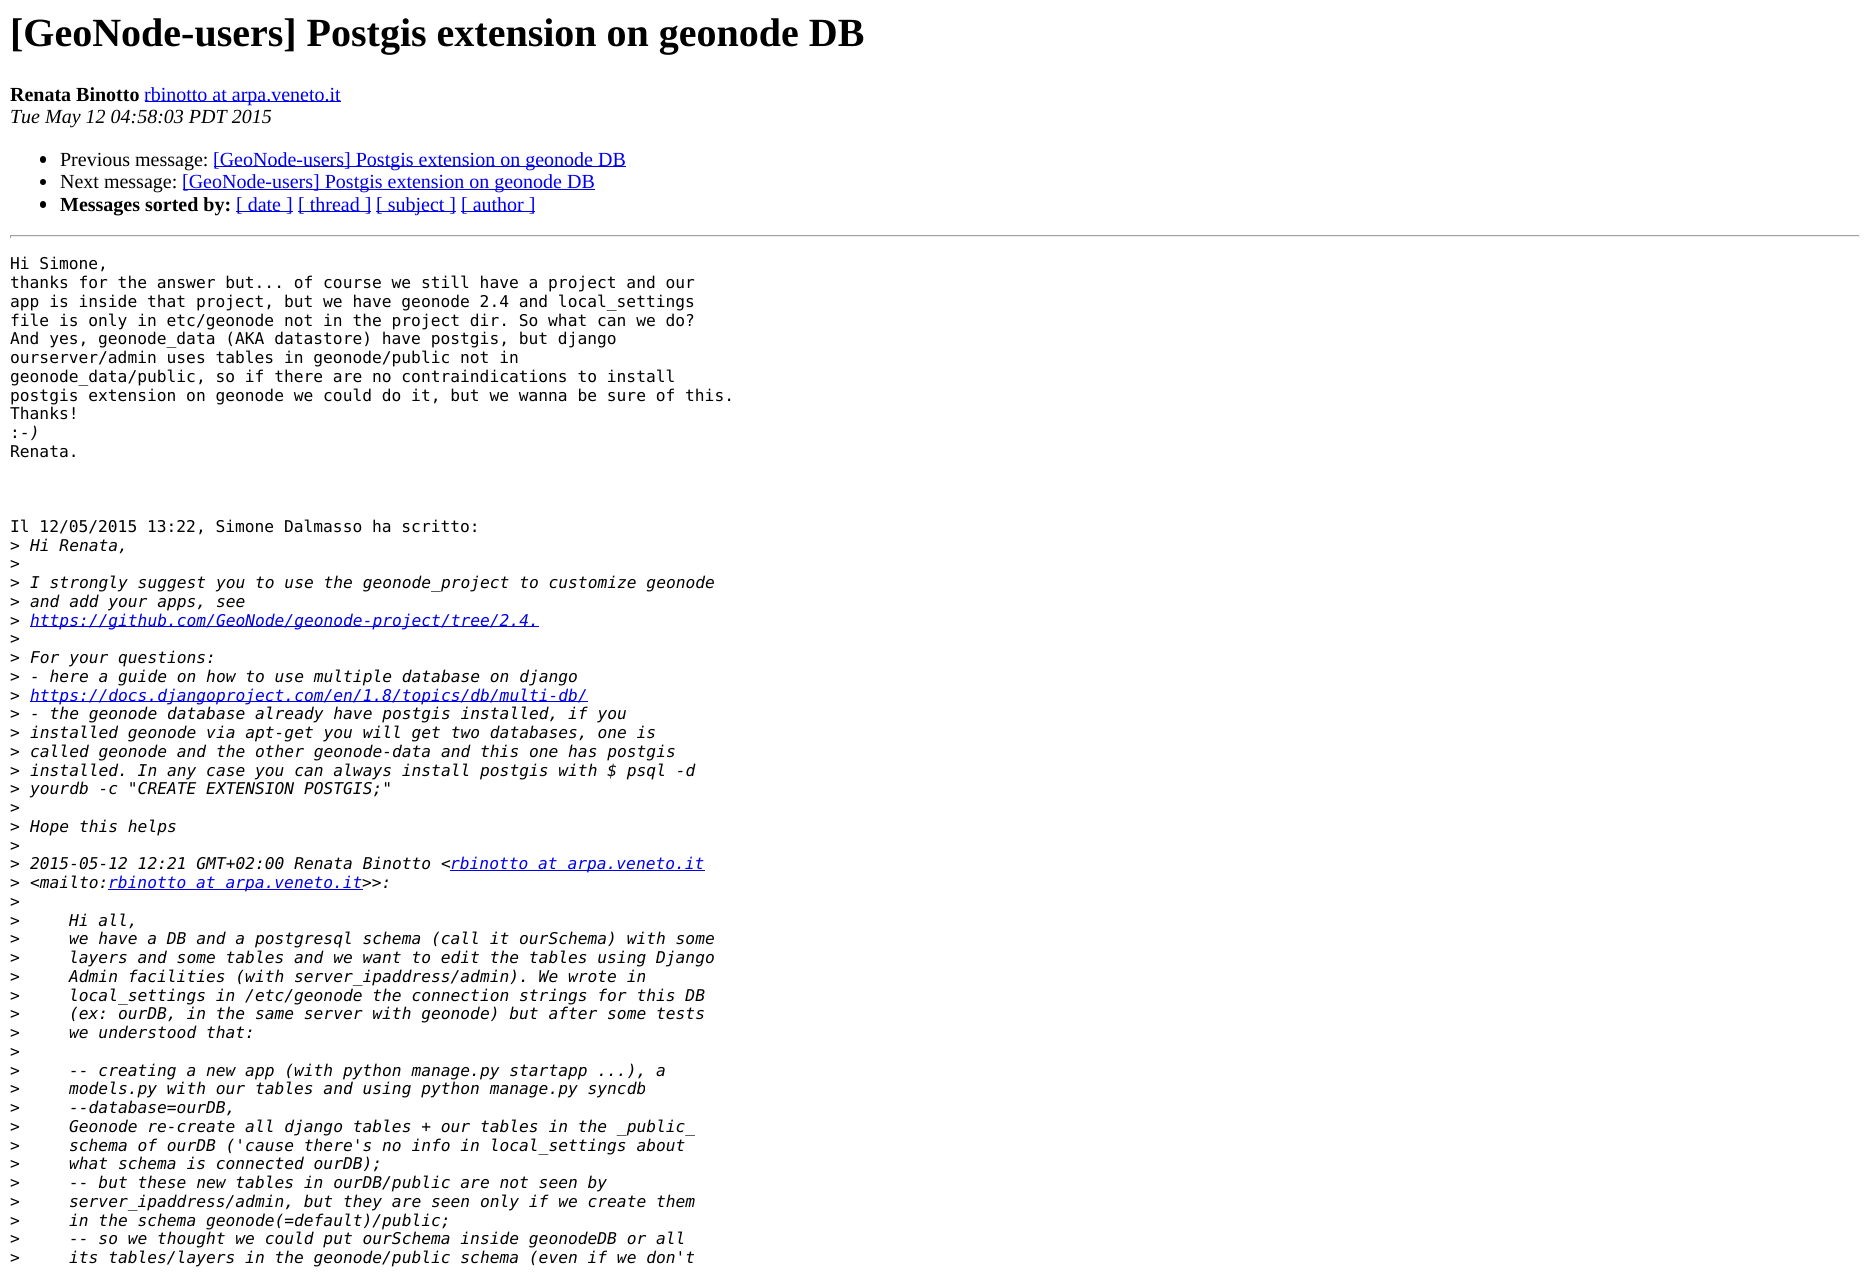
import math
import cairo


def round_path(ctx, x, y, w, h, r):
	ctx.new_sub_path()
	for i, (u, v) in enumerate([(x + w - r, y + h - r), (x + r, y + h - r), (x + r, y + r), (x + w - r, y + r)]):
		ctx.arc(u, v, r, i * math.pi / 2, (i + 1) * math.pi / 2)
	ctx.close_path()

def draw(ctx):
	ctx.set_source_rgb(1, 1, 1)
	ctx.paint()
	ctx.select_font_face('Liberation Serif', cairo.FONT_SLANT_NORMAL, cairo.FONT_WEIGHT_BOLD)
	ctx.set_font_size(40)
	ctx.set_source_rgb(0, 0, 0)
	ctx.move_to(10, 46)
	ctx.show_text('[GeoNode-users] Postgis extension on geonode DB')
	ctx.set_font_size(20)
	ctx.move_to(10, 101)
	ctx.show_text('Renata Binotto')
	ctx.set_source_rgb(0, 0, 0.933)
	ctx.rectangle(145, 101, 196, 1)
	ctx.fill()
	ctx.select_font_face('Liberation Serif')
	ctx.move_to(144, 101)
	ctx.show_text('rbinotto at arpa.veneto.it')
	ctx.select_font_face('Liberation Serif', cairo.FONT_SLANT_ITALIC)
	ctx.set_source_rgb(0, 0, 0)
	ctx.move_to(10, 123)
	ctx.show_text('Tue May 12 04:58:03 PDT 2015')
	round_path(ctx, 40, 156, 6, 7, 3)
	ctx.fill()
	ctx.select_font_face('Liberation Serif')
	ctx.move_to(60, 166)
	ctx.show_text('Previous message:')
	ctx.set_source_rgb(0, 0, 0.933)
	ctx.rectangle(214, 166, 412, 1)
	ctx.fill()
	ctx.move_to(213, 166)
	ctx.show_text('[GeoNode-users] Postgis extension on geonode DB')
	ctx.set_source_rgb(0, 0, 0)
	ctx.new_path()
	ctx.arc(43, 182, 3, 0, 2 * math.pi)
	ctx.fill()
	ctx.move_to(60, 188)
	ctx.show_text('Next message:')
	ctx.set_source_rgb(0, 0, 0.933)
	ctx.rectangle(183, 189, 412, 1)
	ctx.fill()
	ctx.move_to(182, 188)
	ctx.show_text('[GeoNode-users] Postgis extension on geonode DB')
	ctx.set_source_rgb(0, 0, 0)
	round_path(ctx, 40, 201, 6, 7, 3)
	ctx.fill()
	ctx.select_font_face('Liberation Serif', cairo.FONT_SLANT_NORMAL, cairo.FONT_WEIGHT_BOLD)
	ctx.move_to(60, 211)
	ctx.show_text('Messages sorted by:')
	ctx.set_source_rgb(0, 0, 0.933)
	ctx.rectangle(236, 211, 57, 1)
	ctx.fill()
	ctx.select_font_face('Liberation Serif')
	ctx.move_to(236, 211)
	ctx.show_text('[ date ]')
	ctx.rectangle(298, 211, 73, 1)
	ctx.fill()
	ctx.move_to(298, 211)
	ctx.show_text('[ thread ]')
	ctx.rectangle(376, 211, 80, 1)
	ctx.fill()
	ctx.move_to(376, 211)
	ctx.show_text('[ subject ]')
	ctx.rectangle(461, 211, 74, 1)
	ctx.fill()
	ctx.move_to(461, 211)
	ctx.show_text('[ author ]')
	ctx.set_source_rgb(0.624, 0.624, 0.624)
	ctx.rectangle(10, 235, 1850, 1)
	ctx.fill()
	ctx.set_source_rgb(0.933, 0.933, 0.933)
	ctx.rectangle(1859, 235, 1, 3)
	ctx.rectangle(10, 236, 1850, 1)
	ctx.fill()
	ctx.set_source_rgb(0.624, 0.624, 0.624)
	ctx.rectangle(10, 235, 1, 3)
	ctx.fill()
	ctx.select_font_face('DejaVu Sans Mono')
	ctx.set_font_size(16.25)
	ctx.set_source_rgb(0, 0, 0)
	for x, y, s in [
		(10, 269, 'Hi Simone,'),
		(10, 288, 'thanks for the answer but... of course we still have a project and our'),
		(10, 307, 'app is inside that project, but we have geonode 2.4 and local_settings'),
		(10, 326, 'file is only in etc/geonode not in the project dir. So what can we do?'),
		(10, 344, 'And yes, geonode_data (AKA datastore) have postgis, but django'),
		(10, 363, 'ourserver/admin uses tables in geonode/public not in'),
		(10, 382, 'geonode_data/public, so if there are no contraindications to install'),
		(10, 401, 'postgis extension on geonode we could do it, but we wanna be sure of this.'),
		(10, 419, 'Thanks!'),
		(10, 438, ':'),
	]:
		ctx.move_to(x, y)
		ctx.show_text(s)
	ctx.select_font_face('DejaVu Sans Mono', cairo.FONT_SLANT_ITALIC)
	ctx.move_to(20, 438)
	ctx.show_text('-)')
	ctx.select_font_face('DejaVu Sans Mono')
	for x, y, s in [
		(10, 457, 'Renata.'),
		(10, 532, 'Il 12/05/2015 13:22, Simone Dalmasso ha scritto:'),
		(10, 551, '>'),
	]:
		ctx.move_to(x, y)
		ctx.show_text(s)
	ctx.select_font_face('DejaVu Sans Mono', cairo.FONT_SLANT_ITALIC)
	ctx.move_to(30, 551)
	ctx.show_text('Hi Renata,')
	ctx.select_font_face('DejaVu Sans Mono')
	ctx.move_to(10, 569)
	ctx.show_text('>')
	ctx.move_to(10, 588)
	ctx.show_text('>')
	ctx.select_font_face('DejaVu Sans Mono', cairo.FONT_SLANT_ITALIC)
	ctx.move_to(30, 588)
	ctx.show_text('I strongly suggest you to use the geonode_project to customize geonode')
	ctx.select_font_face('DejaVu Sans Mono')
	ctx.move_to(10, 607)
	ctx.show_text('>')
	ctx.select_font_face('DejaVu Sans Mono', cairo.FONT_SLANT_ITALIC)
	ctx.move_to(30, 607)
	ctx.show_text('and add your apps, see')
	ctx.select_font_face('DejaVu Sans Mono')
	ctx.move_to(10, 626)
	ctx.show_text('>')
	ctx.set_source_rgb(0, 0, 0.933)
	ctx.rectangle(30, 626, 509, 1)
	ctx.fill()
	ctx.select_font_face('DejaVu Sans Mono', cairo.FONT_SLANT_ITALIC)
	ctx.move_to(30, 626)
	ctx.show_text('https://github.com/GeoNode/geonode-project/tree/2.4.')
	ctx.select_font_face('DejaVu Sans Mono')
	ctx.set_source_rgb(0, 0, 0)
	ctx.move_to(10, 644)
	ctx.show_text('>')
	ctx.move_to(10, 663)
	ctx.show_text('>')
	ctx.select_font_face('DejaVu Sans Mono', cairo.FONT_SLANT_ITALIC)
	ctx.move_to(30, 663)
	ctx.show_text('For your questions:')
	ctx.select_font_face('DejaVu Sans Mono')
	ctx.move_to(10, 682)
	ctx.show_text('>')
	ctx.select_font_face('DejaVu Sans Mono', cairo.FONT_SLANT_ITALIC)
	ctx.move_to(30, 682)
	ctx.show_text('- here a guide on how to use multiple database on django')
	ctx.select_font_face('DejaVu Sans Mono')
	ctx.move_to(10, 701)
	ctx.show_text('>')
	ctx.set_source_rgb(0, 0, 0.933)
	ctx.rectangle(30, 701, 558, 1)
	ctx.fill()
	ctx.select_font_face('DejaVu Sans Mono', cairo.FONT_SLANT_ITALIC)
	ctx.move_to(30, 701)
	ctx.show_text('https://docs.djangoproject.com/en/1.8/topics/db/multi-db/')
	ctx.select_font_face('DejaVu Sans Mono')
	ctx.set_source_rgb(0, 0, 0)
	ctx.move_to(10, 719)
	ctx.show_text('>')
	ctx.select_font_face('DejaVu Sans Mono', cairo.FONT_SLANT_ITALIC)
	ctx.move_to(30, 719)
	ctx.show_text('- the geonode database already have postgis installed, if you')
	ctx.select_font_face('DejaVu Sans Mono')
	ctx.move_to(10, 738)
	ctx.show_text('>')
	ctx.select_font_face('DejaVu Sans Mono', cairo.FONT_SLANT_ITALIC)
	ctx.move_to(30, 738)
	ctx.show_text('installed geonode via apt-get you will get two databases, one is')
	ctx.select_font_face('DejaVu Sans Mono')
	ctx.move_to(10, 757)
	ctx.show_text('>')
	ctx.select_font_face('DejaVu Sans Mono', cairo.FONT_SLANT_ITALIC)
	ctx.move_to(30, 757)
	ctx.show_text('called geonode and the other geonode-data and this one has postgis')
	ctx.select_font_face('DejaVu Sans Mono')
	ctx.move_to(10, 776)
	ctx.show_text('>')
	ctx.select_font_face('DejaVu Sans Mono', cairo.FONT_SLANT_ITALIC)
	ctx.move_to(30, 776)
	ctx.show_text('installed. In any case you can always install postgis with $ psql -d')
	ctx.select_font_face('DejaVu Sans Mono')
	ctx.move_to(10, 794)
	ctx.show_text('>')
	ctx.select_font_face('DejaVu Sans Mono', cairo.FONT_SLANT_ITALIC)
	ctx.move_to(30, 794)
	ctx.show_text('yourdb -c "CREATE EXTENSION POSTGIS;"')
	ctx.select_font_face('DejaVu Sans Mono')
	ctx.move_to(10, 813)
	ctx.show_text('>')
	ctx.move_to(10, 832)
	ctx.show_text('>')
	ctx.select_font_face('DejaVu Sans Mono', cairo.FONT_SLANT_ITALIC)
	ctx.move_to(30, 832)
	ctx.show_text('Hope this helps')
	ctx.select_font_face('DejaVu Sans Mono')
	ctx.move_to(10, 851)
	ctx.show_text('>')
	ctx.move_to(10, 869)
	ctx.show_text('>')
	ctx.select_font_face('DejaVu Sans Mono', cairo.FONT_SLANT_ITALIC)
	ctx.move_to(30, 869)
	ctx.show_text('2015-05-12 12:21 GMT+02:00 Renata Binotto <')
	ctx.set_source_rgb(0, 0, 0.933)
	ctx.rectangle(450, 870, 255, 1)
	ctx.fill()
	ctx.move_to(450, 869)
	ctx.show_text('rbinotto at arpa.veneto.it')
	ctx.select_font_face('DejaVu Sans Mono')
	ctx.set_source_rgb(0, 0, 0)
	ctx.move_to(10, 888)
	ctx.show_text('>')
	ctx.select_font_face('DejaVu Sans Mono', cairo.FONT_SLANT_ITALIC)
	ctx.move_to(30, 888)
	ctx.show_text('<mailto:')
	ctx.set_source_rgb(0, 0, 0.933)
	ctx.rectangle(108, 889, 255, 1)
	ctx.fill()
	ctx.move_to(108, 888)
	ctx.show_text('rbinotto at arpa.veneto.it')
	ctx.set_source_rgb(0, 0, 0)
	ctx.move_to(362, 888)
	ctx.show_text('>>:')
	ctx.select_font_face('DejaVu Sans Mono')
	ctx.move_to(10, 907)
	ctx.show_text('>')
	ctx.move_to(10, 926)
	ctx.show_text('>')
	ctx.select_font_face('DejaVu Sans Mono', cairo.FONT_SLANT_ITALIC)
	ctx.move_to(69, 926)
	ctx.show_text('Hi all,')
	ctx.select_font_face('DejaVu Sans Mono')
	ctx.move_to(10, 944)
	ctx.show_text('>')
	ctx.select_font_face('DejaVu Sans Mono', cairo.FONT_SLANT_ITALIC)
	ctx.move_to(69, 944)
	ctx.show_text('we have a DB and a postgresql schema (call it ourSchema) with some')
	ctx.select_font_face('DejaVu Sans Mono')
	ctx.move_to(10, 963)
	ctx.show_text('>')
	ctx.select_font_face('DejaVu Sans Mono', cairo.FONT_SLANT_ITALIC)
	ctx.move_to(69, 963)
	ctx.show_text('layers and some tables and we want to edit the tables using Django')
	ctx.select_font_face('DejaVu Sans Mono')
	ctx.move_to(10, 982)
	ctx.show_text('>')
	ctx.select_font_face('DejaVu Sans Mono', cairo.FONT_SLANT_ITALIC)
	ctx.move_to(69, 982)
	ctx.show_text('Admin facilities (with server_ipaddress/admin). We wrote in')
	ctx.select_font_face('DejaVu Sans Mono')
	ctx.move_to(10, 1001)
	ctx.show_text('>')
	ctx.select_font_face('DejaVu Sans Mono', cairo.FONT_SLANT_ITALIC)
	ctx.move_to(69, 1001)
	ctx.show_text('local_settings in /etc/geonode the connection strings for this DB')
	ctx.select_font_face('DejaVu Sans Mono')
	ctx.move_to(10, 1019)
	ctx.show_text('>')
	ctx.select_font_face('DejaVu Sans Mono', cairo.FONT_SLANT_ITALIC)
	ctx.move_to(69, 1019)
	ctx.show_text('(ex: ourDB, in the same server with geonode) but after some tests')
	ctx.select_font_face('DejaVu Sans Mono')
	ctx.move_to(10, 1038)
	ctx.show_text('>')
	ctx.select_font_face('DejaVu Sans Mono', cairo.FONT_SLANT_ITALIC)
	ctx.move_to(69, 1038)
	ctx.show_text('we understood that:')
	ctx.select_font_face('DejaVu Sans Mono')
	ctx.move_to(10, 1057)
	ctx.show_text('>')
	ctx.move_to(10, 1076)
	ctx.show_text('>')
	ctx.select_font_face('DejaVu Sans Mono', cairo.FONT_SLANT_ITALIC)
	ctx.move_to(69, 1076)
	ctx.show_text('-- creating a new app (with python manage.py startapp ...), a')
	ctx.select_font_face('DejaVu Sans Mono')
	ctx.move_to(10, 1094)
	ctx.show_text('>')
	ctx.select_font_face('DejaVu Sans Mono', cairo.FONT_SLANT_ITALIC)
	ctx.move_to(69, 1094)
	ctx.show_text('models.py with our tables and using python manage.py syncdb')
	ctx.select_font_face('DejaVu Sans Mono')
	ctx.move_to(10, 1113)
	ctx.show_text('>')
	ctx.select_font_face('DejaVu Sans Mono', cairo.FONT_SLANT_ITALIC)
	ctx.move_to(69, 1113)
	ctx.show_text('--database=ourDB,')
	ctx.select_font_face('DejaVu Sans Mono')
	ctx.move_to(10, 1132)
	ctx.show_text('>')
	ctx.select_font_face('DejaVu Sans Mono', cairo.FONT_SLANT_ITALIC)
	ctx.move_to(69, 1132)
	ctx.show_text('Geonode re-create all django tables + our tables in the _public_')
	ctx.select_font_face('DejaVu Sans Mono')
	ctx.move_to(10, 1151)
	ctx.show_text('>')
	ctx.select_font_face('DejaVu Sans Mono', cairo.FONT_SLANT_ITALIC)
	ctx.move_to(69, 1151)
	ctx.show_text('schema of ourDB (\'cause there\'s no info in local_settings about')
	ctx.select_font_face('DejaVu Sans Mono')
	ctx.move_to(10, 1169)
	ctx.show_text('>')
	ctx.select_font_face('DejaVu Sans Mono', cairo.FONT_SLANT_ITALIC)
	ctx.move_to(69, 1169)
	ctx.show_text('what schema is connected ourDB);')
	ctx.select_font_face('DejaVu Sans Mono')
	ctx.move_to(10, 1188)
	ctx.show_text('>')
	ctx.select_font_face('DejaVu Sans Mono', cairo.FONT_SLANT_ITALIC)
	ctx.move_to(69, 1188)
	ctx.show_text('-- but these new tables in ourDB/public are not seen by')
	ctx.select_font_face('DejaVu Sans Mono')
	ctx.move_to(10, 1207)
	ctx.show_text('>')
	ctx.select_font_face('DejaVu Sans Mono', cairo.FONT_SLANT_ITALIC)
	ctx.move_to(69, 1207)
	ctx.show_text('server_ipaddress/admin, but they are seen only if we create them')
	ctx.select_font_face('DejaVu Sans Mono')
	ctx.move_to(10, 1226)
	ctx.show_text('>')
	ctx.select_font_face('DejaVu Sans Mono', cairo.FONT_SLANT_ITALIC)
	ctx.move_to(69, 1226)
	ctx.show_text('in the schema geonode(=default)/public;')
	ctx.select_font_face('DejaVu Sans Mono')
	ctx.move_to(10, 1244)
	ctx.show_text('>')
	ctx.select_font_face('DejaVu Sans Mono', cairo.FONT_SLANT_ITALIC)
	ctx.move_to(69, 1244)
	ctx.show_text('-- so we thought we could put ourSchema inside geonodeDB or all')
	ctx.select_font_face('DejaVu Sans Mono')
	ctx.move_to(10, 1263)
	ctx.show_text('>')
	ctx.select_font_face('DejaVu Sans Mono', cairo.FONT_SLANT_ITALIC)
	ctx.move_to(69, 1263)
	ctx.show_text('its tables/layers in the geonode/public schema (even if we don\'t')


surface = cairo.ImageSurface(cairo.FORMAT_RGB24, 1870, 1277)
ctx = cairo.Context(surface)
options = cairo.FontOptions()
options.set_hint_metrics(cairo.HINT_METRICS_OFF)
options.set_hint_style(cairo.HINT_STYLE_NONE)
ctx.set_font_options(options)
ctx.set_miter_limit(4)
draw(ctx)
surface.write_to_png('image.png')
